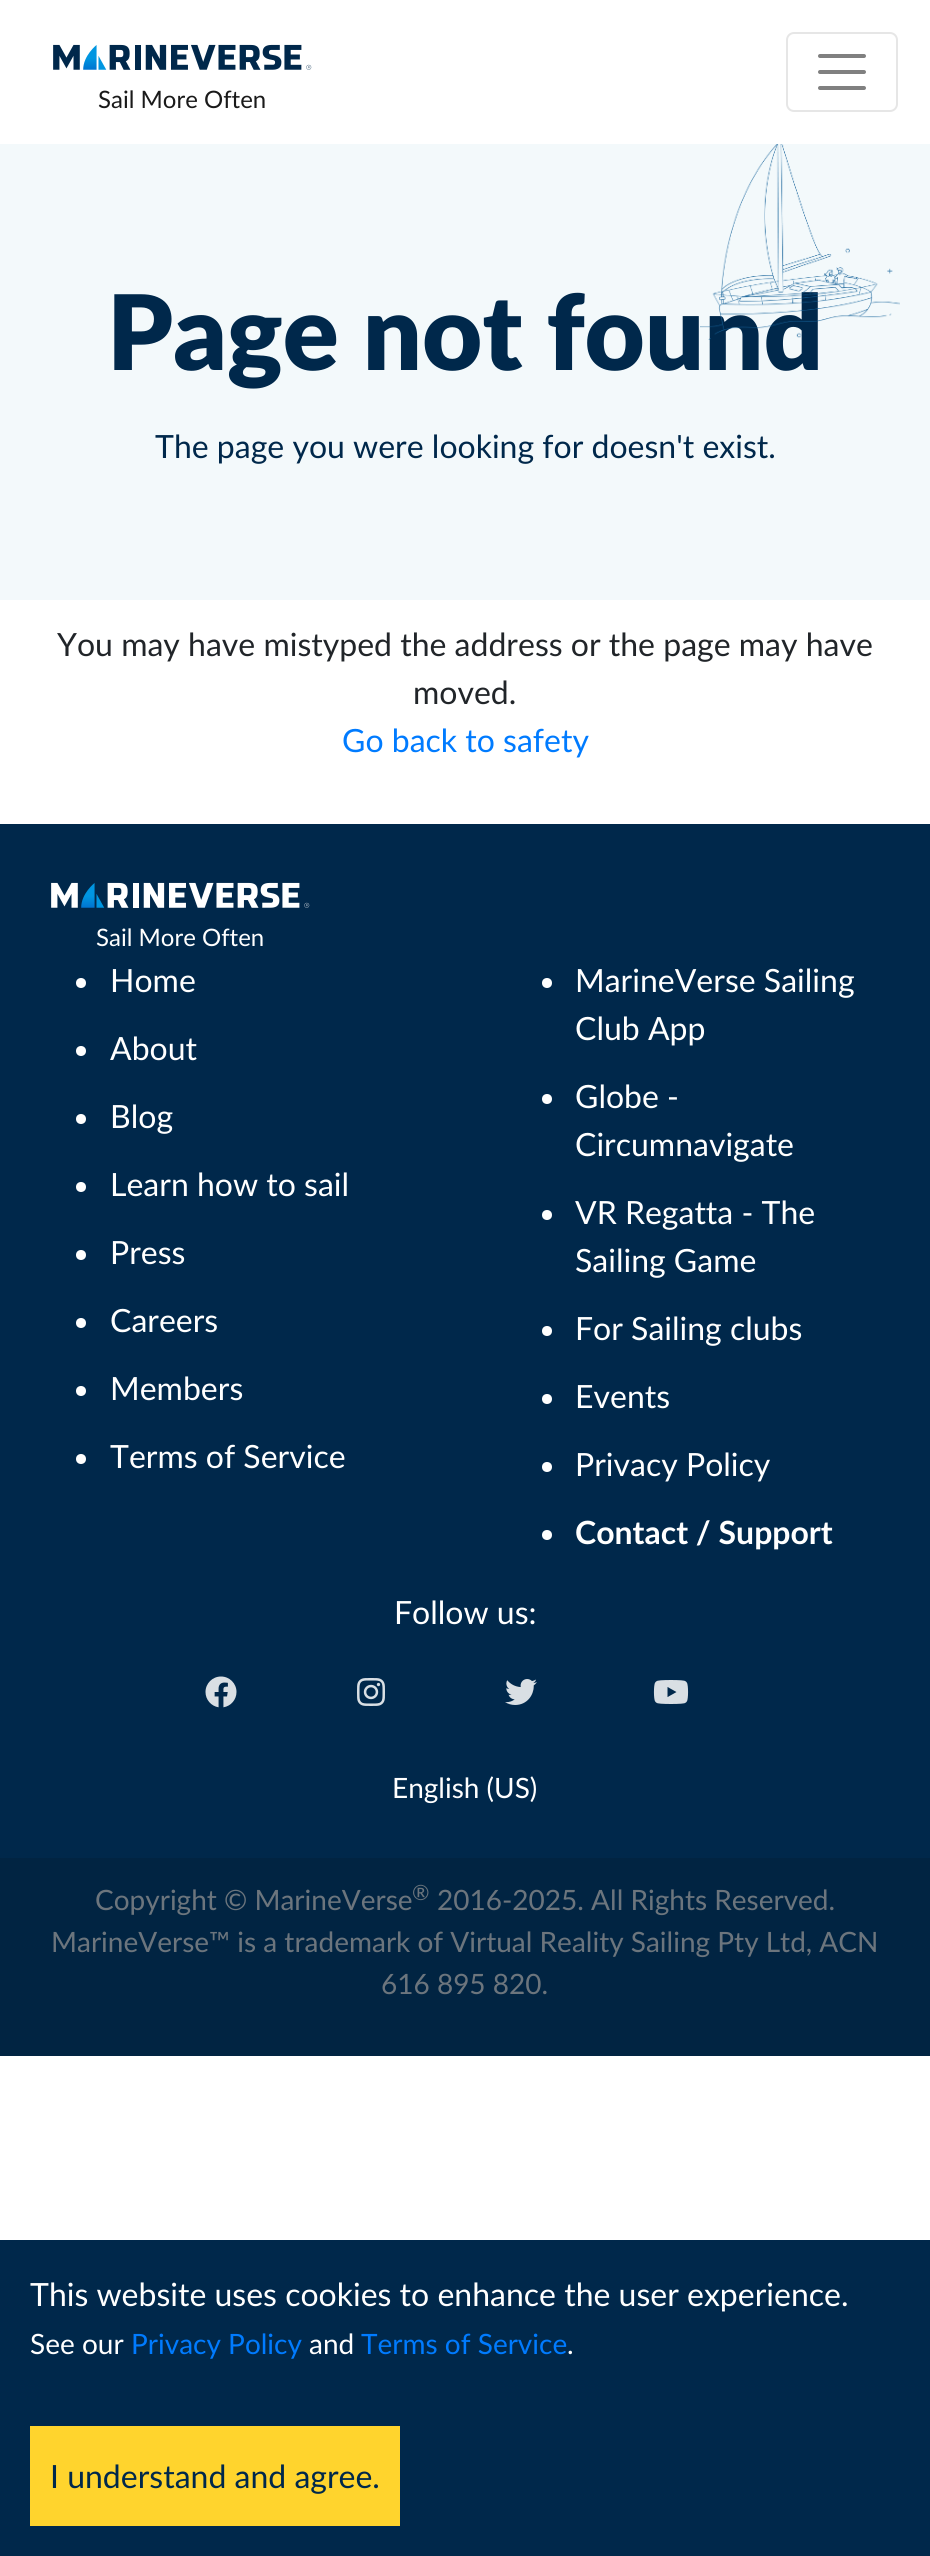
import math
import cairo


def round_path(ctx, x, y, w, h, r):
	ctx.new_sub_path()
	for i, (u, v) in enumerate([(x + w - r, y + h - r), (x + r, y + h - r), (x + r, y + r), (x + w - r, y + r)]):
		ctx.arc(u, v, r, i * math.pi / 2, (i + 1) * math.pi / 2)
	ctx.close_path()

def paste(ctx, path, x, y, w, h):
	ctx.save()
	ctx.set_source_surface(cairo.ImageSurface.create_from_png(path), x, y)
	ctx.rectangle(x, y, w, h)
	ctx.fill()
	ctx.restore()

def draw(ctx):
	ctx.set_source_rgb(1, 1, 1)
	ctx.paint()
	paste(ctx, 'media/1.png', 53, 44, 259, 26)
	ctx.select_font_face('Lato')
	ctx.set_font_size(24)
	ctx.set_source_rgb(0.102, 0.102, 0.102)
	ctx.move_to(98, 108)
	ctx.show_text('Sail More Often')
	round_path(ctx, 787, 33, 110, 78, 7)
	ctx.set_source_rgb(0.902, 0.902, 0.902)
	ctx.stroke()
	ctx.new_path()
	ctx.move_to(820, 56)
	ctx.line_to(864, 56)
	ctx.move_to(820, 72)
	ctx.line_to(864, 72)
	ctx.move_to(820, 88)
	ctx.line_to(864, 88)
	ctx.set_source_rgb(0.502, 0.502, 0.502)
	ctx.set_line_width(4)
	ctx.set_line_cap(cairo.LINE_CAP_ROUND)
	ctx.stroke()
	ctx.set_source_rgb(0.953, 0.973, 0.984)
	ctx.rectangle(0, 144, 930, 456)
	ctx.fill()
	ctx.select_font_face('Lato ExtraBold')
	ctx.set_font_size(104)
	ctx.set_source_rgb(0, 0.157, 0.294)
	ctx.move_to(107, 370)
	ctx.show_text('Page not found')
	paste(ctx, 'media/2.png', 700, 144, 200, 196)
	ctx.select_font_face('Lato')
	ctx.set_font_size(32)
	ctx.move_to(155, 458)
	ctx.show_text('The page you were looking for doesn\'t exist.')
	ctx.set_source_rgb(0.129, 0.145, 0.161)
	ctx.move_to(57, 656)
	ctx.show_text('You may have mistyped the address or the page may have')
	ctx.move_to(413, 704)
	ctx.show_text('moved.')
	ctx.set_source_rgb(0, 0.482, 1)
	ctx.move_to(342, 752)
	ctx.show_text('Go back to safety')
	ctx.set_source_rgb(0, 0.157, 0.294)
	ctx.rectangle(0, 824, 930, 1034)
	ctx.fill()
	paste(ctx, 'media/3.png', 51, 882, 259, 26)
	ctx.set_font_size(24)
	ctx.set_source_rgb(1, 1, 1)
	ctx.move_to(96, 946)
	ctx.show_text('Sail More Often')
	ctx.new_path()
	ctx.arc(81, 983, 5, 0, 2 * math.pi)
	ctx.fill()
	ctx.set_font_size(32)
	ctx.move_to(110, 992)
	ctx.show_text('Home')
	ctx.new_path()
	ctx.arc(81, 1051, 5, 0, 2 * math.pi)
	ctx.fill()
	ctx.move_to(110, 1060)
	ctx.show_text('About')
	ctx.new_path()
	ctx.arc(81, 1119, 5, 0, 2 * math.pi)
	ctx.fill()
	ctx.move_to(110, 1128)
	ctx.show_text('Blog')
	ctx.new_path()
	ctx.arc(81, 1187, 5, 0, 2 * math.pi)
	ctx.fill()
	ctx.move_to(110, 1196)
	ctx.show_text('Learn how to sail')
	ctx.new_path()
	ctx.arc(81, 1255, 5, 0, 2 * math.pi)
	ctx.fill()
	ctx.move_to(110, 1264)
	ctx.show_text('Press')
	ctx.new_path()
	ctx.arc(81, 1323, 5, 0, 2 * math.pi)
	ctx.fill()
	ctx.move_to(110, 1332)
	ctx.show_text('Careers')
	ctx.new_path()
	ctx.arc(81, 1391, 5, 0, 2 * math.pi)
	ctx.fill()
	ctx.move_to(110, 1400)
	ctx.show_text('Members')
	ctx.new_path()
	ctx.arc(81, 1459, 5, 0, 2 * math.pi)
	ctx.fill()
	ctx.move_to(110, 1468)
	ctx.show_text('Terms of Service')
	ctx.new_path()
	ctx.arc(547, 983, 5, 0, 2 * math.pi)
	ctx.fill()
	ctx.move_to(575, 992)
	ctx.show_text('MarineVerse Sailing')
	ctx.move_to(575, 1040)
	ctx.show_text('Club App')
	ctx.new_path()
	ctx.arc(547, 1099, 5, 0, 2 * math.pi)
	ctx.fill()
	ctx.move_to(575, 1108)
	ctx.show_text('Globe -')
	ctx.move_to(575, 1156)
	ctx.show_text('Circumnavigate')
	ctx.new_path()
	ctx.arc(547, 1215, 5, 0, 2 * math.pi)
	ctx.fill()
	ctx.move_to(575, 1224)
	ctx.show_text('VR Regatta - The')
	ctx.move_to(575, 1272)
	ctx.show_text('Sailing Game')
	ctx.new_path()
	ctx.arc(547, 1331, 5, 0, 2 * math.pi)
	ctx.fill()
	ctx.move_to(575, 1340)
	ctx.show_text('For Sailing clubs')
	ctx.new_path()
	ctx.arc(547, 1399, 5, 0, 2 * math.pi)
	ctx.fill()
	ctx.move_to(575, 1408)
	ctx.show_text('Events')
	ctx.new_path()
	ctx.arc(547, 1467, 5, 0, 2 * math.pi)
	ctx.fill()
	ctx.move_to(575, 1476)
	ctx.show_text('Privacy Policy')
	ctx.new_path()
	ctx.arc(547, 1535, 5, 0, 2 * math.pi)
	ctx.fill()
	ctx.select_font_face('Lato', cairo.FONT_SLANT_NORMAL, cairo.FONT_WEIGHT_BOLD)
	ctx.move_to(575, 1544)
	ctx.show_text('Contact / Support')
	ctx.select_font_face('Lato')
	ctx.move_to(394, 1624)
	ctx.show_text('Follow us:')
	paste(ctx, 'media/4.png', 205, 1676, 32, 32)
	paste(ctx, 'media/5.png', 357, 1678, 28, 28)
	paste(ctx, 'media/6.png', 505, 1679, 32, 26)
	paste(ctx, 'media/7.png', 653, 1680, 36, 24)
	ctx.set_font_size(28)
	ctx.move_to(392, 1798)
	ctx.show_text('English (US)')
	ctx.set_source_rgb(0.004, 0.141, 0.259)
	ctx.rectangle(0, 1858, 930, 198)
	ctx.fill()
	ctx.set_source_rgb(0.424, 0.459, 0.49)
	ctx.move_to(95, 1910)
	ctx.show_text('Copyright © MarineVerse')
	ctx.set_font_size(21)
	ctx.move_to(412, 1900)
	ctx.show_text('®')
	ctx.set_font_size(28)
	for x, y, s in [
		(437, 1910, '2016-2025. All Rights Reserved.'),
		(51, 1952, 'MarineVerse™ is a trademark of Virtual Reality Sailing Pty Ltd, ACN'),
		(381, 1994, '616 895 820.'),
	]:
		ctx.move_to(x, y)
		ctx.show_text(s)
	ctx.set_source_rgb(0, 0.157, 0.294)
	ctx.rectangle(0, 2240, 930, 316)
	ctx.fill()
	ctx.set_font_size(32)
	ctx.set_source_rgb(1, 1, 1)
	ctx.move_to(30, 2306)
	ctx.show_text('This website uses cookies to enhance the user experience.')
	ctx.set_font_size(28)
	ctx.move_to(30, 2354)
	ctx.show_text('See our')
	ctx.set_source_rgb(0, 0.482, 1)
	ctx.move_to(131, 2354)
	ctx.show_text('Privacy Policy')
	ctx.set_source_rgb(1, 1, 1)
	ctx.move_to(309, 2354)
	ctx.show_text('and')
	ctx.set_source_rgb(0, 0.482, 1)
	ctx.move_to(361, 2354)
	ctx.show_text('Terms of Service')
	ctx.set_source_rgb(1, 1, 1)
	ctx.move_to(567, 2354)
	ctx.show_text('.')
	ctx.set_source_rgb(1, 0.831, 0.176)
	ctx.rectangle(30, 2426, 370, 100)
	ctx.fill()
	ctx.set_font_size(32)
	ctx.set_source_rgb(0, 0.157, 0.294)
	ctx.move_to(50, 2488)
	ctx.show_text('I understand and agree.')


surface = cairo.ImageSurface(cairo.FORMAT_RGB24, 930, 2556)
ctx = cairo.Context(surface)
options = cairo.FontOptions()
options.set_hint_metrics(cairo.HINT_METRICS_OFF)
options.set_hint_style(cairo.HINT_STYLE_NONE)
ctx.set_font_options(options)
ctx.set_miter_limit(4)
draw(ctx)
surface.write_to_png('image.png')
